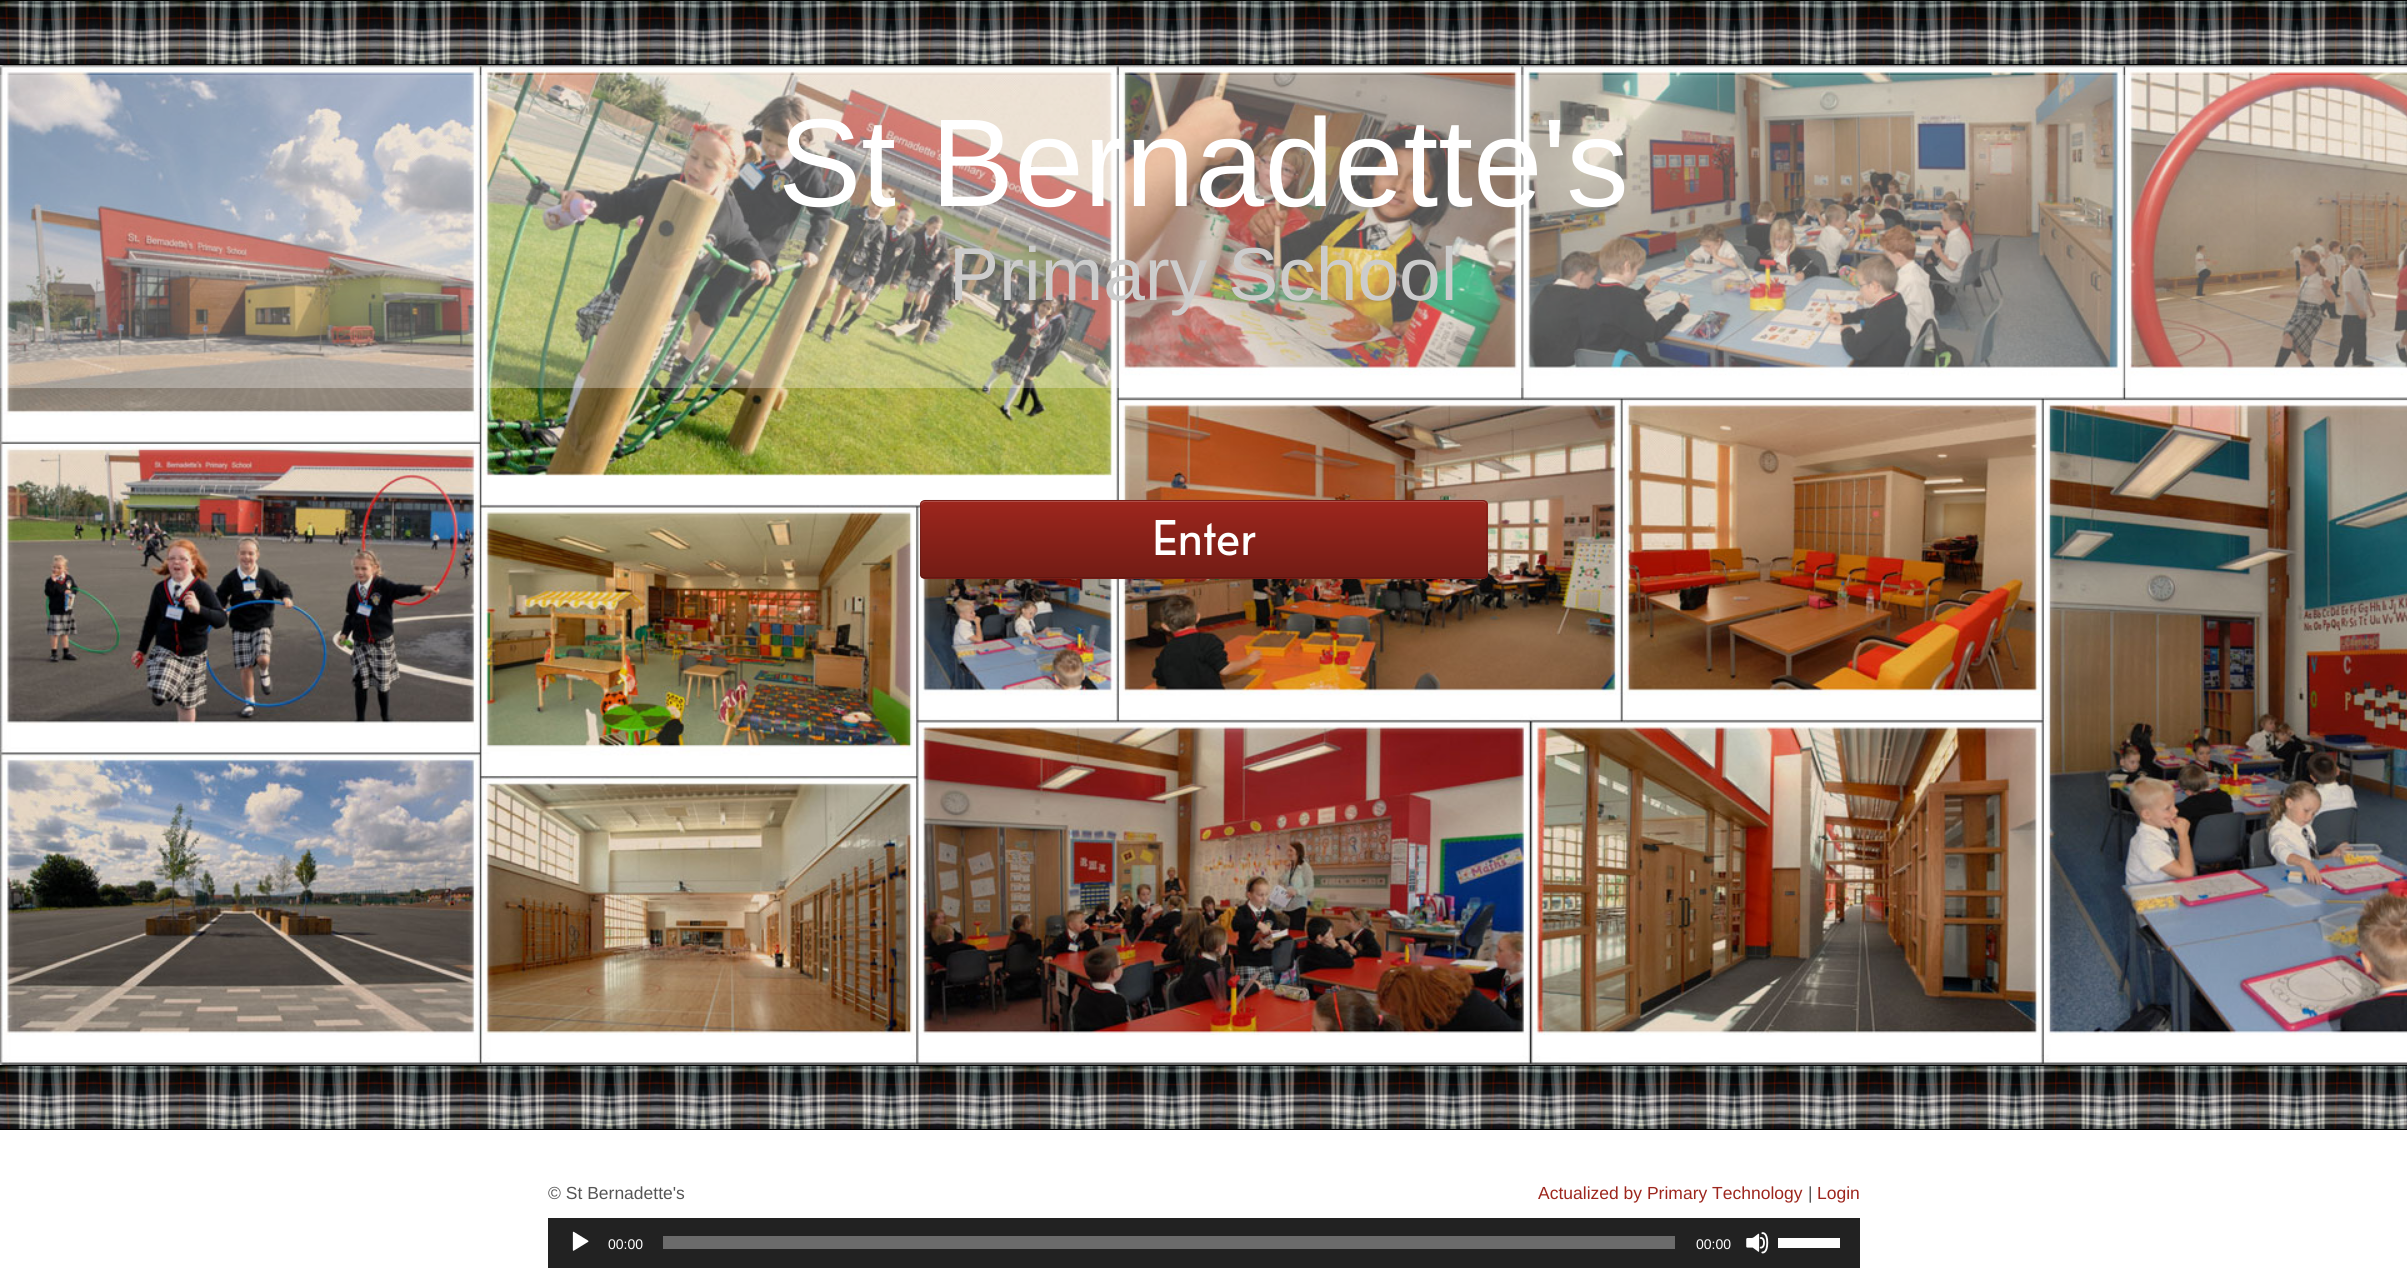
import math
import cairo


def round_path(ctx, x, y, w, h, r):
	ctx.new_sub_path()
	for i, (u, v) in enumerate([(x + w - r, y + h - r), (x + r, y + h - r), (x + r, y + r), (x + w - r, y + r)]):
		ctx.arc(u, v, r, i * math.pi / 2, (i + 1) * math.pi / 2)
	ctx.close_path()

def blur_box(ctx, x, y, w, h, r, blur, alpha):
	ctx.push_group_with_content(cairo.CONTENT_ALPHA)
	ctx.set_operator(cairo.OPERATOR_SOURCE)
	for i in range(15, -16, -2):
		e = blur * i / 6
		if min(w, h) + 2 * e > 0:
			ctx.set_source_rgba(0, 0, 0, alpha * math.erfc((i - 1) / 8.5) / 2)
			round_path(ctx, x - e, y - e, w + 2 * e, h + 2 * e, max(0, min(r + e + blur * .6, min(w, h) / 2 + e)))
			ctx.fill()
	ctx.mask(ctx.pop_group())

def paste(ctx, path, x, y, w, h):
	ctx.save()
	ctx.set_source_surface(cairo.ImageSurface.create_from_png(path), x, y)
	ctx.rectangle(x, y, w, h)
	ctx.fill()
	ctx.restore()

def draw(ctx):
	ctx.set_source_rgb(1, 1, 1)
	ctx.paint()
	paste(ctx, 'media/1.png', 0, 1, 2407, 63)
	ctx.set_source_rgb(0, 0, 0)
	ctx.rectangle(0, 0, 2407, 1)
	ctx.fill()
	ctx.rectangle(0, 64, 2407, 1)
	ctx.fill()
	paste(ctx, 'media/2.png', 0, 65, 2407, 1000)
	ctx.set_source_rgba(1, 1, 1, 0.3)
	ctx.rectangle(0, 75, 2407, 313)
	ctx.fill()
	ctx.select_font_face('Liberation Sans')
	ctx.set_font_size(125)
	ctx.set_source_rgb(1, 1, 1)
	ctx.move_to(778, 206)
	ctx.show_text('St Bernadette\'s')
	ctx.set_font_size(75)
	ctx.set_source_rgb(0.8, 0.8, 0.8)
	ctx.move_to(949, 300)
	ctx.show_text('Primary School')
	ctx.set_source_rgb(0, 0, 0)
	blur_box(ctx, 920, 501, 568, 79, 5, 1, 0.05)
	ctx.set_source_rgb(0.549, 0.133, 0.102)
	round_path(ctx, 920, 500, 568, 79, 5)
	ctx.fill()
	ctx.save()
	round_path(ctx, 920, 500, 568, 79, 5)
	ctx.clip()
	gradient = cairo.LinearGradient(1204, 501, 1204, 578)
	gradient.add_color_stop_rgba(0, 0.616, 0.149, 0.114, 1)
	gradient.add_color_stop_rgba(1, 0.447, 0.11, 0.082, 1)
	ctx.set_source(gradient)
	ctx.rectangle(920, 501, 568, 77)
	ctx.fill()
	ctx.restore()
	ctx.set_source_rgb(0.694, 0.318, 0.29)
	ctx.new_path()
	ctx.move_to(925, 502)
	ctx.line_to(1482, 502)
	ctx.curve_to(1485, 502, 1486, 504, 1486, 506)
	ctx.curve_to(1486, 503, 1485, 501, 1482, 501)
	ctx.line_to(925, 501)
	ctx.curve_to(922, 501, 921, 503, 921, 506)
	ctx.curve_to(921, 504, 923, 502, 925, 502)
	ctx.close_path()
	ctx.fill()
	ctx.new_path()
	ctx.move_to(1485.5, 577)
	ctx.curve_to(1485, 577.5, 1483.5, 578, 1482.5, 578)
	ctx.line_to(925, 578)
	ctx.curve_to(924, 578, 922.5, 577.5, 922, 577)
	ctx.set_source_rgba(0, 0, 0, 0.25)
	ctx.set_line_width(1.2)
	ctx.stroke()
	ctx.new_path()
	ctx.move_to(922, 577)
	ctx.curve_to(921, 576, 920.5, 575, 920.5, 574)
	ctx.line_to(920.5, 505)
	ctx.curve_to(920.5, 504, 921, 502.5, 922, 502)
	ctx.curve_to(922.5, 501, 924, 500.5, 925, 500.5)
	ctx.line_to(1482.5, 500.5)
	ctx.curve_to(1483.5, 500.5, 1485, 501, 1485.5, 502)
	ctx.curve_to(1486.5, 502.5, 1487, 504, 1487, 505)
	ctx.line_to(1487, 574)
	ctx.curve_to(1487, 575, 1486.5, 576, 1485.5, 577)
	ctx.set_source_rgba(0, 0, 0, 0.15)
	ctx.stroke()
	ctx.select_font_face('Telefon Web')
	ctx.set_font_size(50)
	ctx.set_source_rgb(1, 1, 1)
	ctx.move_to(1152, 555)
	ctx.show_text('Enter')
	paste(ctx, 'media/1.png', 0, 1066, 2407, 63)
	ctx.set_source_rgb(0, 0, 0)
	ctx.rectangle(0, 1065, 2407, 1)
	ctx.fill()
	ctx.rectangle(0, 1129, 2407, 1)
	ctx.fill()
	ctx.select_font_face('Liberation Sans')
	ctx.set_font_size(17.5)
	ctx.set_source_rgb(0.333, 0.333, 0.333)
	ctx.move_to(548, 1199)
	ctx.show_text('© St Bernadette\'s')
	ctx.set_source_rgb(0.133, 0.133, 0.133)
	ctx.rectangle(548, 1218, 1312, 50)
	ctx.fill()
	paste(ctx, 'media/3.png', 572, 1231, 17, 20)
	ctx.set_font_size(14)
	ctx.set_source_rgb(1, 1, 1)
	ctx.move_to(608, 1249)
	ctx.show_text('00:00')
	ctx.set_source_rgb(0.42, 0.42, 0.42)
	ctx.rectangle(663, 1236, 1012, 13)
	ctx.fill()
	ctx.set_source_rgb(1, 1, 1)
	ctx.move_to(1696, 1249)
	ctx.show_text('00:00')
	paste(ctx, 'media/4.png', 1746, 1232, 23, 22)
	ctx.rectangle(1778, 1238, 62, 10)
	ctx.fill()
	ctx.set_font_size(17.5)
	ctx.set_source_rgb(0.616, 0.149, 0.114)
	ctx.move_to(1538, 1199)
	ctx.show_text('Actualized by Primary Technology')
	ctx.set_source_rgb(0.333, 0.333, 0.333)
	ctx.move_to(1808, 1199)
	ctx.show_text('|')
	ctx.set_source_rgb(0.616, 0.149, 0.114)
	ctx.move_to(1817, 1199)
	ctx.show_text('Login')


surface = cairo.ImageSurface(cairo.FORMAT_RGB24, 2407, 1287)
ctx = cairo.Context(surface)
options = cairo.FontOptions()
options.set_hint_metrics(cairo.HINT_METRICS_OFF)
options.set_hint_style(cairo.HINT_STYLE_NONE)
ctx.set_font_options(options)
ctx.set_miter_limit(4)
draw(ctx)
surface.write_to_png('image.png')
